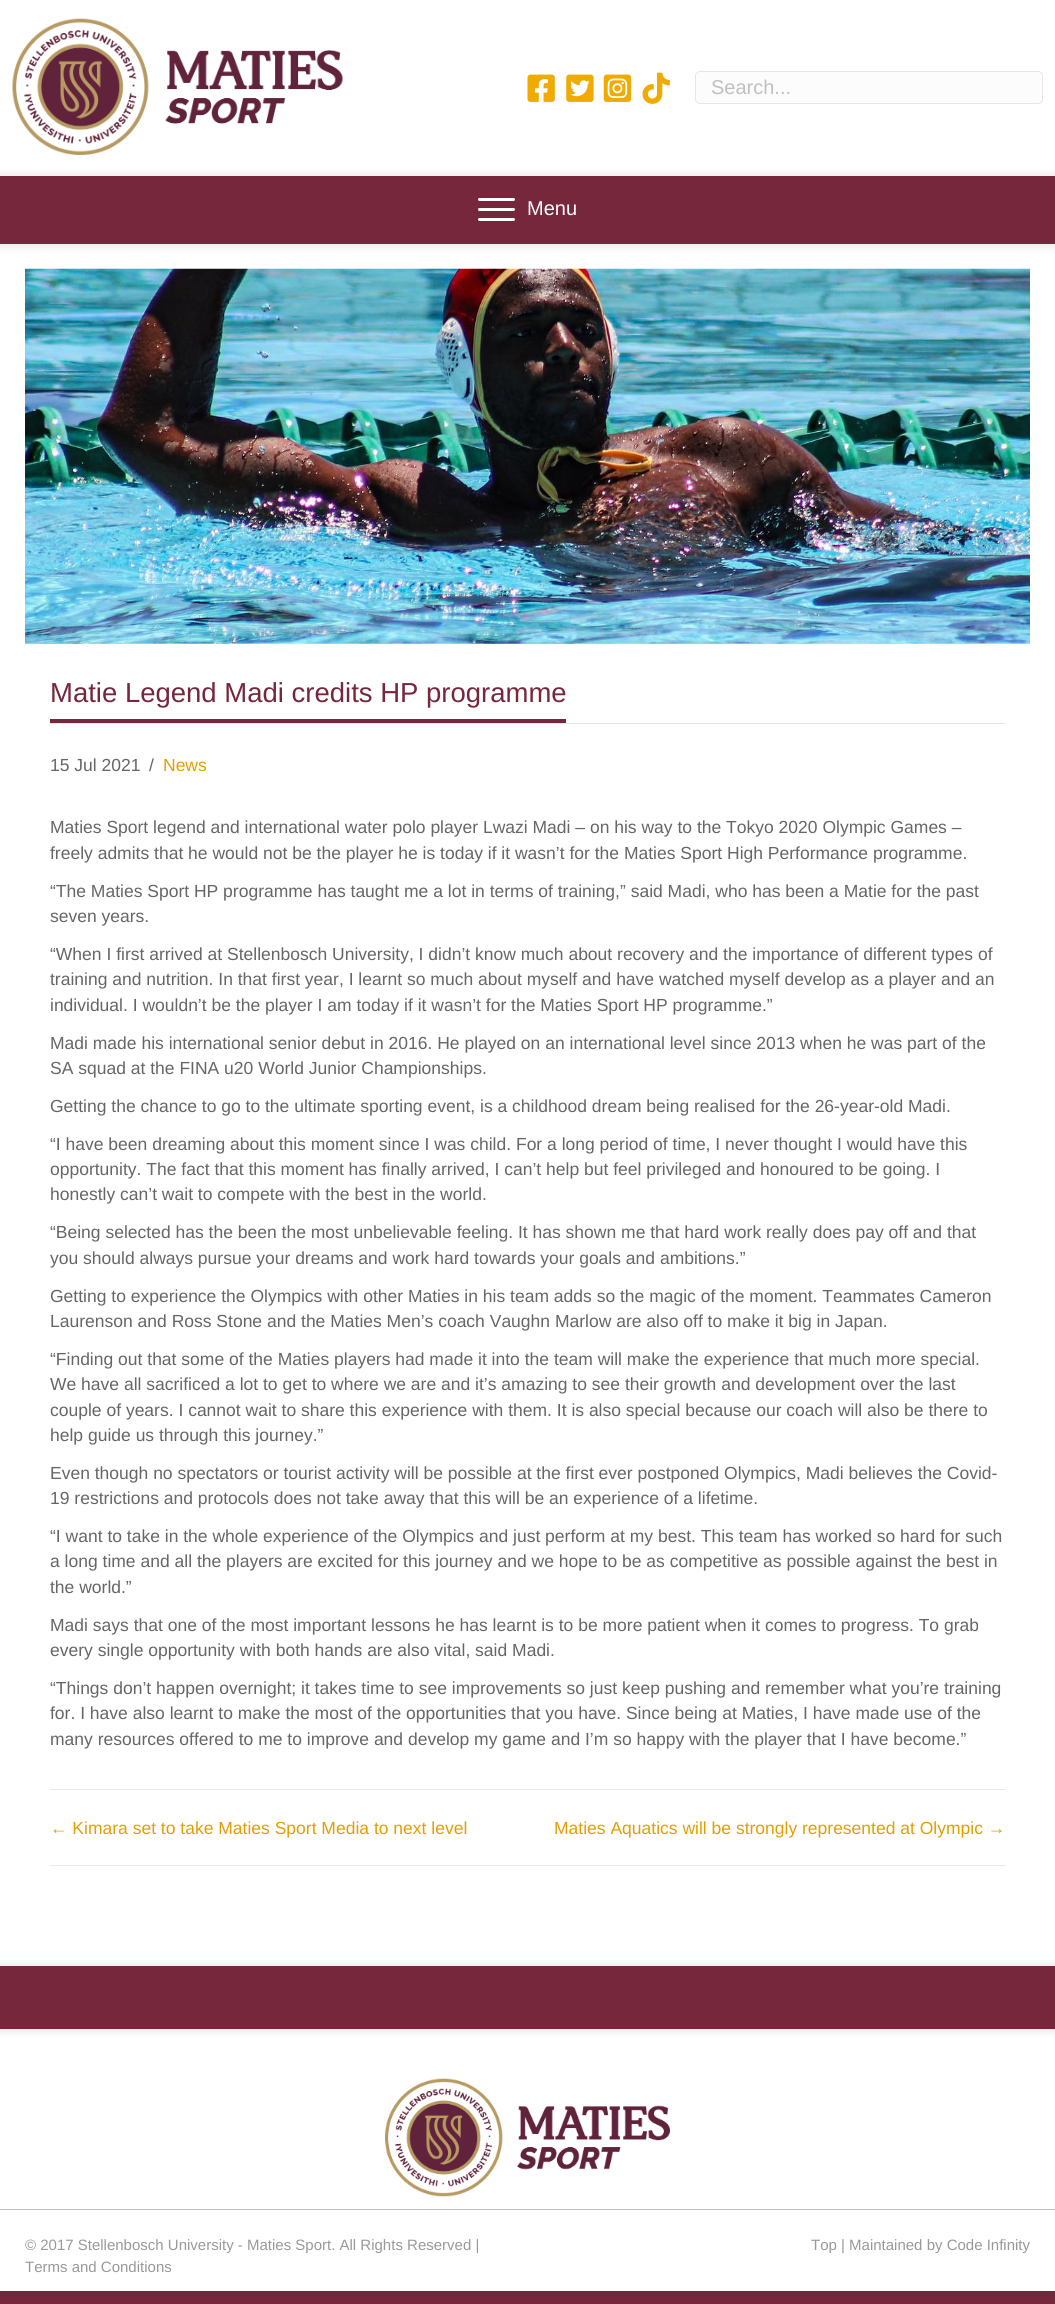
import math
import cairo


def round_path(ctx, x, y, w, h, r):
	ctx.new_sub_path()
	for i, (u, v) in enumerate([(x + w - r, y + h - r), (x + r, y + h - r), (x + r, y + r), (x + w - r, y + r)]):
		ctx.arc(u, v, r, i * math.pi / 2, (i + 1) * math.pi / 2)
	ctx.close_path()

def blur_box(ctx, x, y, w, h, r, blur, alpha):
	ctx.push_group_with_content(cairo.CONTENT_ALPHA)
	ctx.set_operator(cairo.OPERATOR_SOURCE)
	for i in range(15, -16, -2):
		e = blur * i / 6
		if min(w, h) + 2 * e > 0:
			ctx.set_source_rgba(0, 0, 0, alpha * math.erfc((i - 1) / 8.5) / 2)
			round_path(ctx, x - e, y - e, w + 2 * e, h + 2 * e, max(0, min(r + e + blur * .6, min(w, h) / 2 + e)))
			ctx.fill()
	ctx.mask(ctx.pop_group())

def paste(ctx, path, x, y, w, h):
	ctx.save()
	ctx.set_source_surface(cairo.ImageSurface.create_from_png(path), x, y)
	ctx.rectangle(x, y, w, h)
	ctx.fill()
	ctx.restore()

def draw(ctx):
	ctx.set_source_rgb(1, 1, 1)
	ctx.paint()
	paste(ctx, 'media/1.png', 12, 18, 331, 137)
	paste(ctx, 'media/2.png', 527, 74, 28, 28)
	paste(ctx, 'media/3.png', 566, 74, 28, 28)
	paste(ctx, 'media/4.png', 603, 74, 29, 28)
	paste(ctx, 'media/5.png', 642, 72, 28, 32)
	ctx.set_source_rgb(0.988, 0.988, 0.988)
	round_path(ctx, 695.5, 71.5, 347, 32, 4.5)
	ctx.fill_preserve()
	ctx.set_source_rgb(0.902, 0.902, 0.902)
	ctx.set_line_width(1)
	ctx.stroke()
	ctx.select_font_face('Liberation Sans')
	ctx.set_font_size(20)
	ctx.set_source_rgb(0.753, 0.753, 0.753)
	ctx.move_to(711, 94)
	ctx.show_text('Search...')
	ctx.set_source_rgb(0.929, 0.929, 0.929)
	blur_box(ctx, -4, 173, 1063, 75, 0, 3, 1)
	ctx.set_source_rgb(0.463, 0.153, 0.235)
	ctx.rectangle(0, 176, 1055, 68)
	ctx.fill()
	ctx.set_source_rgb(1, 1, 1)
	round_path(ctx, 478, 208, 37, 3, 1.5)
	ctx.fill()
	round_path(ctx, 478, 198, 37, 3, 1.5)
	ctx.fill()
	round_path(ctx, 478, 218, 37, 3, 1.5)
	ctx.fill()
	ctx.move_to(527, 215)
	ctx.show_text('Menu')
	paste(ctx, 'media/6.png', 25, 268, 1005, 376)
	ctx.set_source_rgb(0.463, 0.153, 0.235)
	ctx.rectangle(50, 719, 516, 4)
	ctx.fill()
	ctx.set_font_size(27.5)
	ctx.move_to(50, 702)
	ctx.show_text('Matie Legend Madi credits HP programme')
	ctx.set_source_rgb(0.898, 0.898, 0.898)
	ctx.rectangle(50, 723, 955, 1)
	ctx.fill()
	ctx.set_font_size(17.5)
	ctx.set_source_rgb(0.4, 0.4, 0.4)
	ctx.move_to(50, 771)
	ctx.show_text('15 Jul 2021')
	ctx.move_to(149, 771)
	ctx.show_text('/')
	ctx.set_source_rgb(0.89, 0.624, 0)
	ctx.move_to(163, 771)
	ctx.show_text('News')
	ctx.set_source_rgb(0.4, 0.4, 0.4)
	for x, y, s in [
		(50, 833, 'Maties Sport legend and international water polo player Lwazi Madi – on his way to the Tokyo 2020 Olympic Games –'),
		(50, 859, 'freely admits that he would not be the player he is today if it wasn’t for the Maties Sport High Performance programme.'),
		(50, 897, '“The Maties Sport HP programme has taught me a lot in terms of training,” said Madi, who has been a Matie for the past'),
		(50, 922, 'seven years.'),
		(50, 960, '“When I first arrived at Stellenbosch University, I didn’t know much about recovery and the importance of different types of'),
		(50, 985, 'training and nutrition. In that first year, I learnt so much about myself and have watched myself develop as a player and an'),
		(50, 1011, 'individual. I wouldn’t be the player I am today if it wasn’t for the Maties Sport HP programme.”'),
		(50, 1049, 'Madi made his international senior debut in 2016. He played on an international level since 2013 when he was part of the'),
		(50, 1074, 'SA squad at the FINA u20 World Junior Championships.'),
		(50, 1112, 'Getting the chance to go to the ultimate sporting event, is a childhood dream being realised for the 26-year-old Madi.'),
		(50, 1150, '“I have been dreaming about this moment since I was child. For a long period of time, I never thought I would have this'),
		(50, 1175, 'opportunity. The fact that this moment has finally arrived, I can’t help but feel privileged and honoured to be going. I'),
		(50, 1200, 'honestly can’t wait to compete with the best in the world.'),
		(50, 1238, '“Being selected has the been the most unbelievable feeling. It has shown me that hard work really does pay off and that'),
		(50, 1264, 'you should always pursue your dreams and work hard towards your goals and ambitions.”'),
		(50, 1302, 'Getting to experience the Olympics with other Maties in his team adds so the magic of the moment. Teammates Cameron'),
		(50, 1327, 'Laurenson and Ross Stone and the Maties Men’s coach Vaughn Marlow are also off to make it big in Japan.'),
		(50, 1365, '“Finding out that some of the Maties players had made it into the team will make the experience that much more special.'),
		(50, 1390, 'We have all sacrificed a lot to get to where we are and it’s amazing to see their growth and development over the last'),
		(50, 1416, 'couple of years. I cannot wait to share this experience with them. It is also special because our coach will also be there to'),
		(50, 1441, 'help guide us through this journey.”'),
		(50, 1479, 'Even though no spectators or tourist activity will be possible at the first ever postponed Olympics, Madi believes the Covid-'),
		(50, 1504, '19 restrictions and protocols does not take away that this will be an experience of a lifetime.'),
		(50, 1542, '“I want to take in the whole experience of the Olympics and just perform at my best. This team has worked so hard for such'),
		(50, 1567, 'a long time and all the players are excited for this journey and we hope to be as competitive as possible against the best in'),
		(50, 1593, 'the world.”'),
		(50, 1631, 'Madi says that one of the most important lessons he has learnt is to be more patient when it comes to progress. To grab'),
		(50, 1656, 'every single opportunity with both hands are also vital, said Madi.'),
		(50, 1694, '“Things don’t happen overnight; it takes time to see improvements so just keep pushing and remember what you’re training'),
		(50, 1719, 'for. I have also learnt to make the most of the opportunities that you have. Since being at Maties, I have made use of the'),
		(50, 1745, 'many resources offered to me to improve and develop my game and I’m so happy with the player that I have become.”'),
	]:
		ctx.move_to(x, y)
		ctx.show_text(s)
	ctx.set_source_rgb(0.91, 0.91, 0.91)
	ctx.rectangle(50, 1789, 955, 1)
	ctx.fill()
	ctx.set_source_rgb(0.89, 0.624, 0)
	ctx.move_to(50, 1834)
	ctx.show_text('← Kimara set to take Maties Sport Media to next level')
	ctx.move_to(554, 1834)
	ctx.show_text('Maties Aquatics will be strongly represented at Olympic →')
	ctx.set_source_rgb(0.91, 0.91, 0.91)
	ctx.rectangle(50, 1865, 955, 1)
	ctx.fill()
	ctx.set_source_rgb(0.929, 0.929, 0.929)
	blur_box(ctx, -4, 1963, 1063, 70, 0, 3, 1)
	ctx.set_source_rgb(0.463, 0.153, 0.235)
	ctx.rectangle(0, 1966, 1055, 63)
	ctx.fill()
	paste(ctx, 'media/7.png', 385, 2078, 285, 119)
	ctx.set_source_rgb(0.757, 0.757, 0.757)
	ctx.rectangle(0, 2209, 1055, 1)
	ctx.fill()
	ctx.set_font_size(15)
	ctx.set_source_rgb(0.6, 0.6, 0.6)
	for x, y, s in [
		(25, 2250, '© 2017 Stellenbosch University - Maties Sport. All Rights Reserved |'),
		(25, 2272, 'Terms and Conditions'),
		(811, 2250, 'Top | Maintained by Code Infinity'),
	]:
		ctx.move_to(x, y)
		ctx.show_text(s)
	ctx.set_source_rgb(0.463, 0.153, 0.235)
	ctx.rectangle(0, 2291, 1055, 13)
	ctx.fill()


surface = cairo.ImageSurface(cairo.FORMAT_RGB24, 1055, 2304)
ctx = cairo.Context(surface)
options = cairo.FontOptions()
options.set_hint_metrics(cairo.HINT_METRICS_OFF)
options.set_hint_style(cairo.HINT_STYLE_NONE)
ctx.set_font_options(options)
ctx.set_miter_limit(4)
draw(ctx)
surface.write_to_png('image.png')
